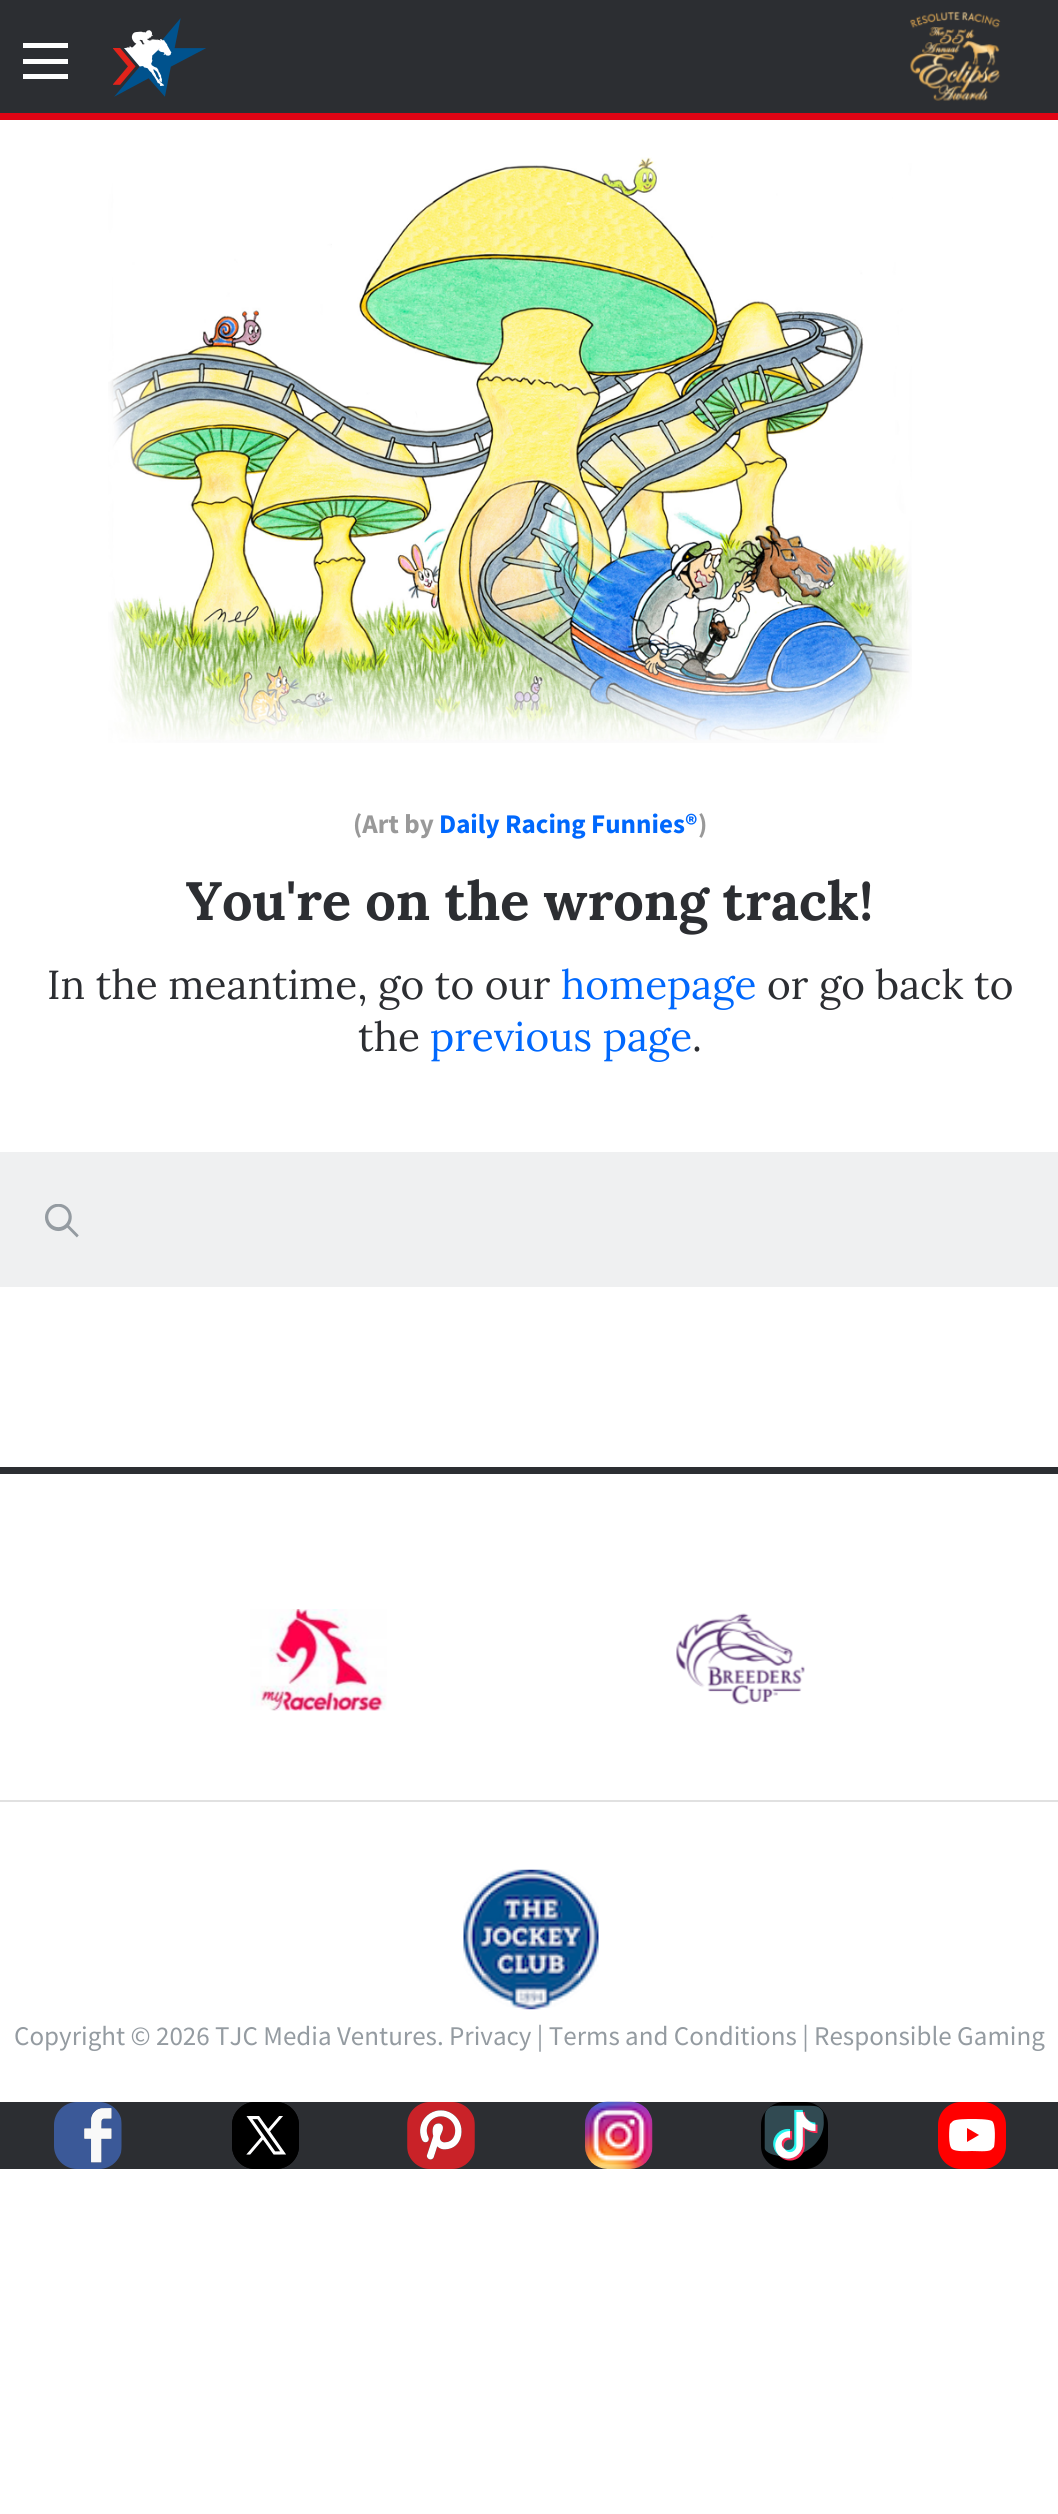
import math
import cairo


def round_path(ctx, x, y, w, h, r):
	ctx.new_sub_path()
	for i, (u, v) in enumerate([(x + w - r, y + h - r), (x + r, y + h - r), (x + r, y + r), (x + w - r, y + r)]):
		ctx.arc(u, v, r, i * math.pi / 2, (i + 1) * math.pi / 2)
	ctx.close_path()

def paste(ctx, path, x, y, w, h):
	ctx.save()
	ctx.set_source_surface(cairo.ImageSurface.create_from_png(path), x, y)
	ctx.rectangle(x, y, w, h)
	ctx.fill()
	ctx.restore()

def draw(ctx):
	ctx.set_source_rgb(1, 1, 1)
	ctx.paint()
	ctx.set_source_rgb(0.173, 0.18, 0.196)
	ctx.rectangle(0, 0, 1058, 113)
	ctx.fill()
	ctx.set_source_rgb(0.878, 0.016, 0.082)
	ctx.rectangle(0, 113, 1058, 7)
	ctx.fill()
	ctx.set_source_rgb(0.996, 0.996, 0.996)
	ctx.rectangle(23, 74, 45, 5)
	ctx.rectangle(23, 59, 45, 5)
	ctx.rectangle(23, 43, 45, 5)
	ctx.fill()
	paste(ctx, 'media/1.png', 113, 18, 93, 79)
	paste(ctx, 'media/2.png', 910, 11, 91, 90)
	paste(ctx, 'media/3.png', 108, 157, 804, 586)
	ctx.select_font_face('Source Sans Pro', cairo.FONT_SLANT_NORMAL, cairo.FONT_WEIGHT_BOLD)
	ctx.set_font_size(27)
	ctx.set_source_rgb(0.6, 0.6, 0.6)
	ctx.move_to(353, 833)
	ctx.show_text('(Art by')
	ctx.set_source_rgb(0, 0.408, 0.992)
	ctx.move_to(439, 833)
	ctx.show_text('Daily Racing Funnies®')
	ctx.set_source_rgb(0.6, 0.6, 0.6)
	ctx.move_to(698, 833)
	ctx.show_text(')')
	ctx.select_font_face('Lora', cairo.FONT_SLANT_NORMAL, cairo.FONT_WEIGHT_BOLD)
	ctx.set_font_size(54)
	ctx.set_source_rgb(0.173, 0.18, 0.196)
	ctx.move_to(186, 920)
	ctx.show_text('You\'re on the wrong track!')
	ctx.select_font_face('Lora')
	ctx.set_font_size(40.5)
	ctx.move_to(47, 999)
	ctx.show_text('In the meantime, go to our')
	ctx.set_source_rgb(0, 0.408, 0.992)
	ctx.move_to(561, 999)
	ctx.show_text('homepage')
	ctx.set_source_rgb(0.173, 0.18, 0.196)
	ctx.move_to(767, 999)
	ctx.show_text('or go back to')
	ctx.move_to(358, 1051)
	ctx.show_text('the')
	ctx.set_source_rgb(0, 0.408, 0.992)
	ctx.move_to(430, 1051)
	ctx.show_text('previous page')
	ctx.set_source_rgb(0.173, 0.18, 0.196)
	ctx.move_to(692, 1051)
	ctx.show_text('.')
	ctx.set_source_rgb(0.937, 0.941, 0.945)
	ctx.rectangle(0, 1152, 1058, 135)
	ctx.fill()
	paste(ctx, 'media/4.png', 45, 1204, 34, 34)
	ctx.set_source_rgb(0.173, 0.18, 0.196)
	ctx.rectangle(0, 1467, 1058, 7)
	ctx.fill()
	paste(ctx, 'media/5.png', 250, 1609, 137, 102)
	paste(ctx, 'media/6.png', 676, 1613, 129, 92)
	ctx.set_source_rgb(0.882, 0.882, 0.882)
	ctx.rectangle(0, 1800, 1058, 2)
	ctx.fill()
	paste(ctx, 'media/7.png', 463, 1869, 136, 141)
	ctx.select_font_face('Source Sans Pro')
	ctx.set_font_size(27)
	ctx.set_source_rgb(0.58, 0.608, 0.631)
	ctx.move_to(14, 2045)
	ctx.show_text('Copyright © 2026 TJC Media Ventures. Privacy | Terms and Conditions | Responsible Gaming')
	ctx.set_source_rgb(0.173, 0.18, 0.196)
	ctx.rectangle(0, 2102, 1058, 67)
	ctx.fill()
	paste(ctx, 'media/8.png', 54, 2102, 68, 67)
	paste(ctx, 'media/9.png', 232, 2102, 67, 67)
	paste(ctx, 'media/10.png', 407, 2102, 68, 67)
	paste(ctx, 'media/11.png', 585, 2101, 68, 68)
	paste(ctx, 'media/12.png', 761, 2102, 67, 67)
	ctx.set_source_rgb(1, 0, 0)
	round_path(ctx, 938, 2102, 68, 67, 23)
	ctx.fill()
	ctx.set_source_rgb(1, 1, 1)
	ctx.new_path()
	ctx.move_to(972, 2119)
	ctx.curve_to(967, 2119, 956, 2119, 953, 2121)
	ctx.line_to(950, 2124)
	ctx.curve_to(949, 2128, 948, 2146, 952, 2149)
	ctx.curve_to(956, 2152, 967, 2151, 972, 2151)
	ctx.curve_to(977, 2151, 987, 2152, 991, 2150)
	ctx.line_to(994, 2147)
	ctx.curve_to(995, 2142, 996, 2124, 992, 2121)
	ctx.curve_to(988, 2119, 977, 2119, 972, 2119)
	ctx.close_path()
	ctx.move_to(967, 2128)
	ctx.line_to(979, 2135)
	ctx.line_to(967, 2142)
	ctx.close_path()
	ctx.fill()


surface = cairo.ImageSurface(cairo.FORMAT_RGB24, 1058, 2514)
ctx = cairo.Context(surface)
options = cairo.FontOptions()
options.set_hint_metrics(cairo.HINT_METRICS_OFF)
options.set_hint_style(cairo.HINT_STYLE_NONE)
ctx.set_font_options(options)
ctx.set_miter_limit(4)
draw(ctx)
surface.write_to_png('image.png')
